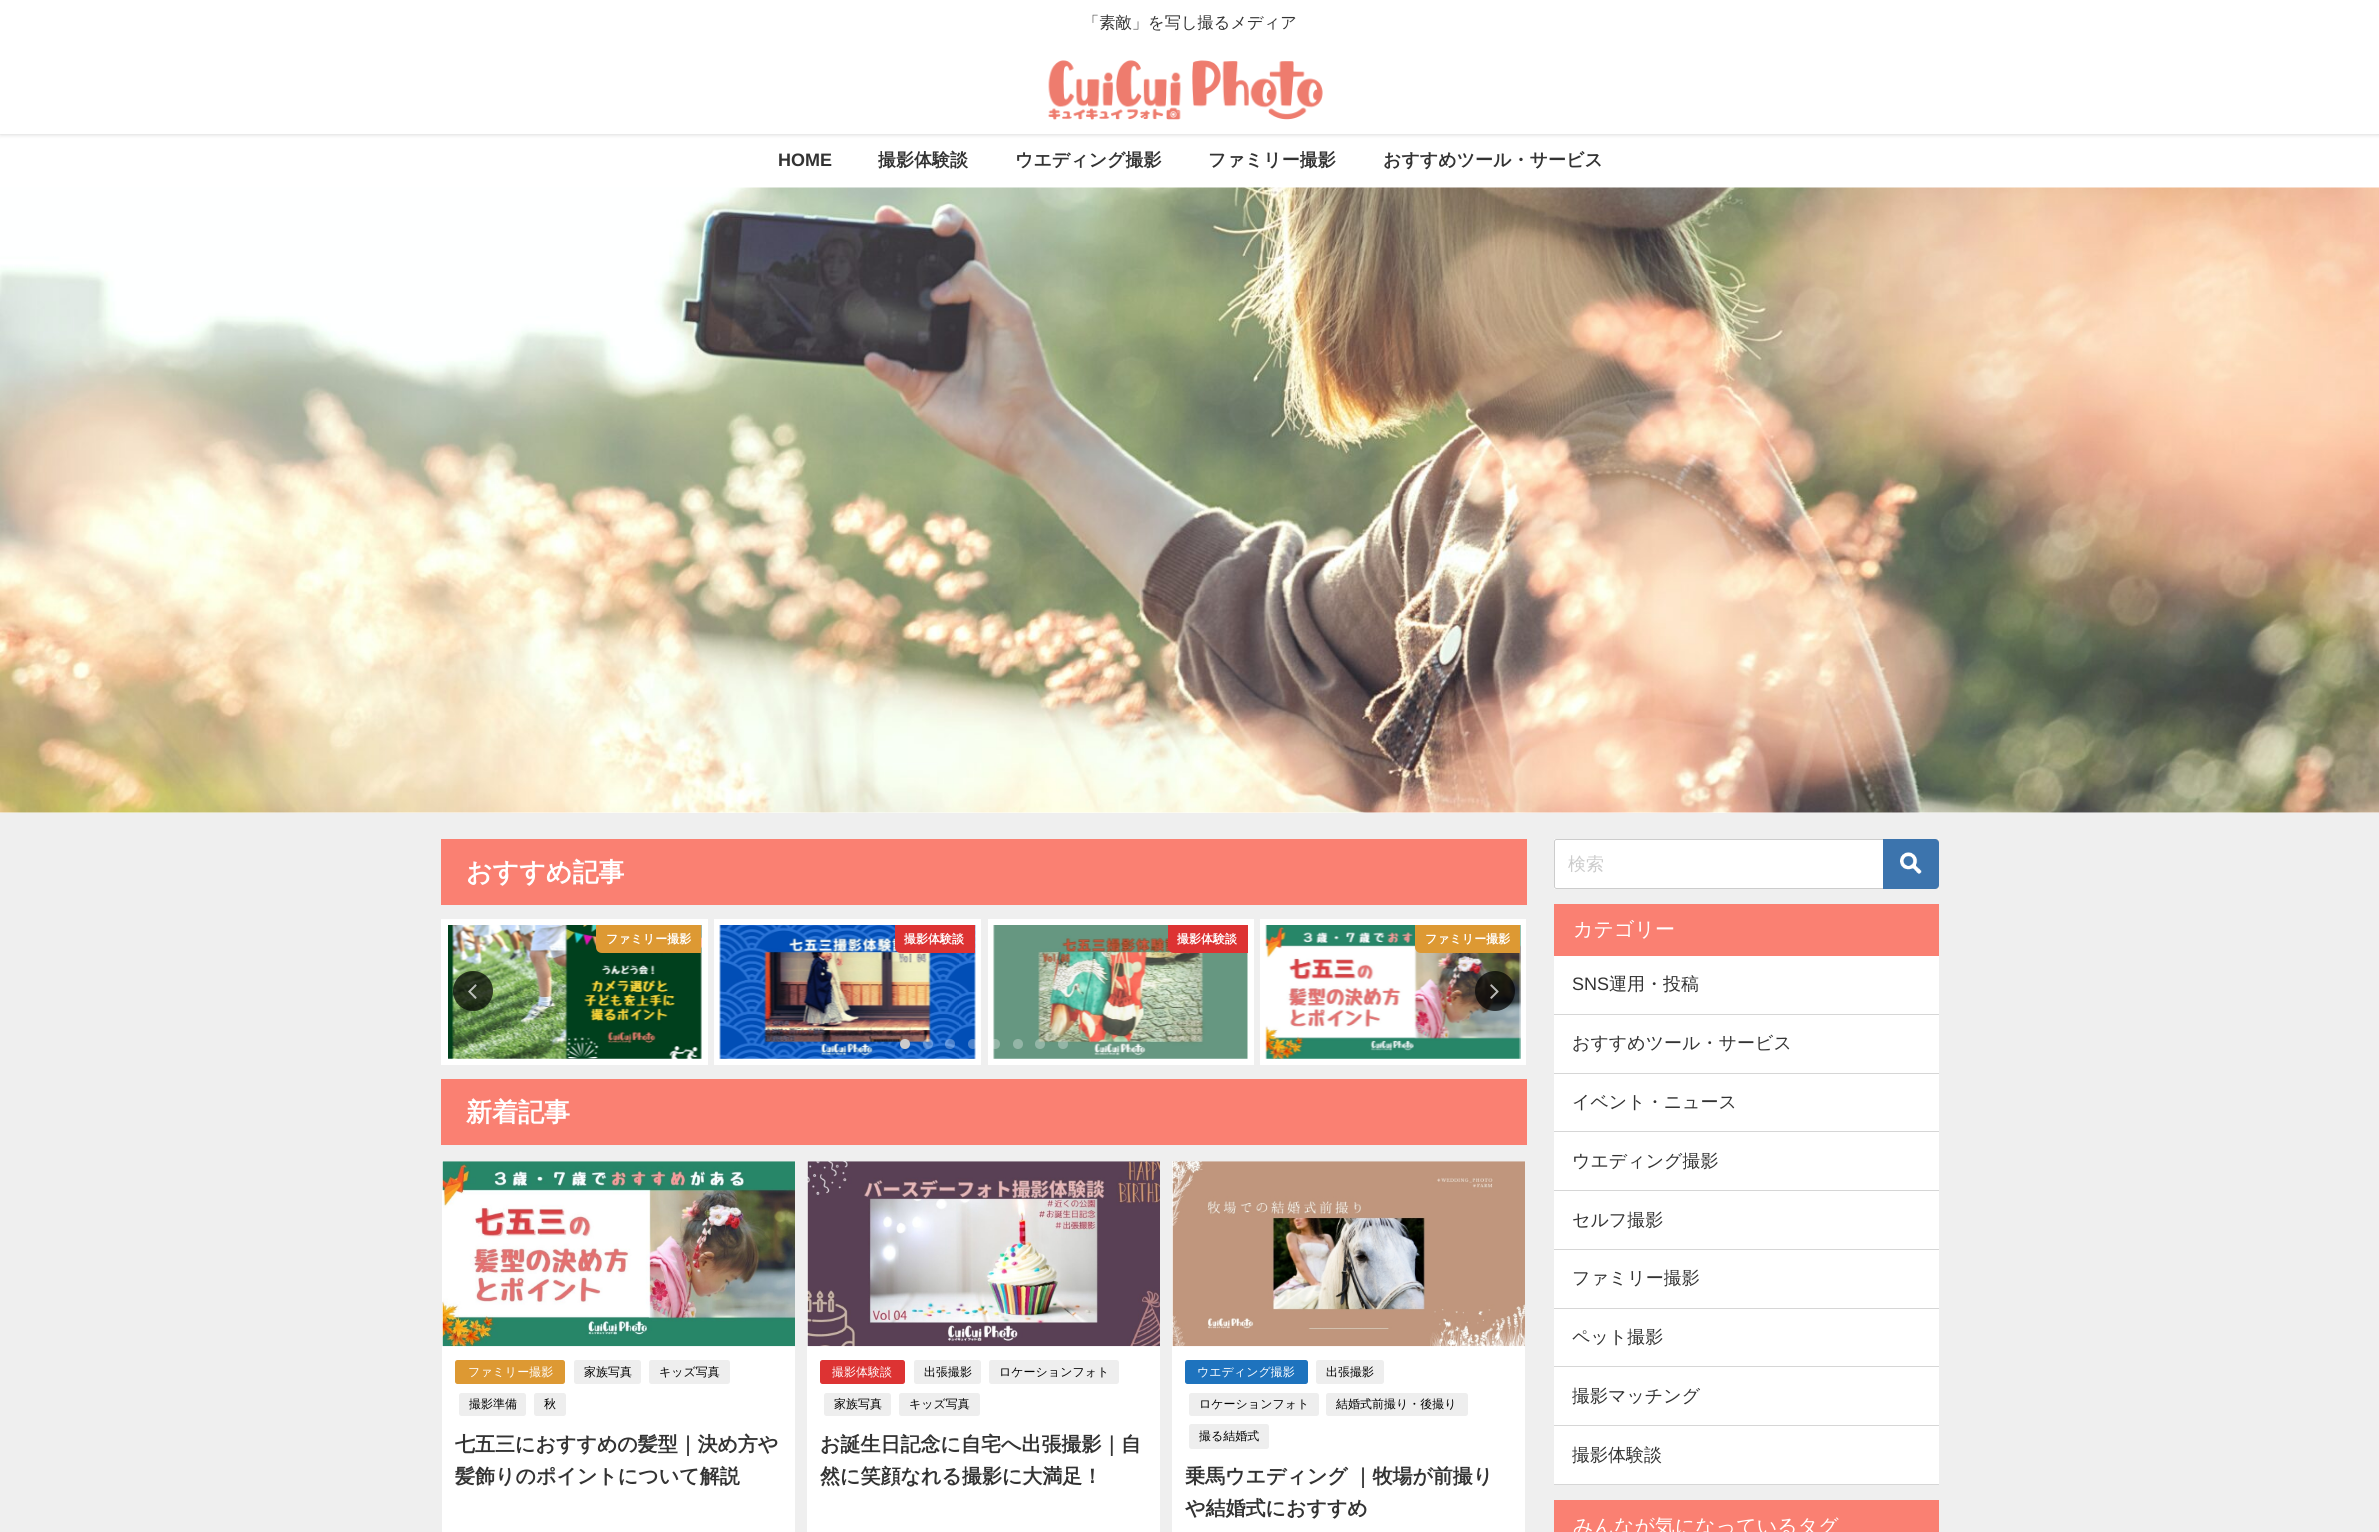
import math
import cairo


def write_spaced(ctx, x, y, s, letter, word):
	ctx.move_to(x, y)
	for ch in s:
		ctx.show_text(ch)
		ctx.rel_move_to(letter + word * (ch == ' '), 0)

def round_path(ctx, x, y, w, h, r):
	ctx.new_sub_path()
	for i, (u, v) in enumerate([(x + w - r, y + h - r), (x + r, y + h - r), (x + r, y + r), (x + w - r, y + r)]):
		ctx.arc(u, v, r, i * math.pi / 2, (i + 1) * math.pi / 2)
	ctx.close_path()

def blur_box(ctx, x, y, w, h, r, blur, alpha):
	ctx.push_group_with_content(cairo.CONTENT_ALPHA)
	ctx.set_operator(cairo.OPERATOR_SOURCE)
	for i in range(15, -16, -2):
		e = blur * i / 6
		if min(w, h) + 2 * e > 0:
			ctx.set_source_rgba(0, 0, 0, alpha * math.erfc((i - 1) / 8.5) / 2)
			round_path(ctx, x - e, y - e, w + 2 * e, h + 2 * e, max(0, min(r + e + blur * .6, min(w, h) / 2 + e)))
			ctx.fill()
	ctx.mask(ctx.pop_group())

def paste(ctx, path, x, y, w, h):
	ctx.save()
	ctx.set_source_surface(cairo.ImageSurface.create_from_png(path), x, y)
	ctx.rectangle(x, y, w, h)
	ctx.fill()
	ctx.restore()

def draw(ctx):
	ctx.set_source_rgb(0.937, 0.937, 0.937)
	ctx.paint()
	ctx.set_source_rgb(1, 1, 1)
	ctx.rectangle(0, 134, 2379, 54)
	ctx.fill()
	ctx.set_source_rgb(0, 0, 0)
	blur_box(ctx, 0, 0, 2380, 134, 0, 2.5, 0.2)
	ctx.set_source_rgb(1, 1, 1)
	ctx.rectangle(0, 0, 2379, 134)
	ctx.fill()
	ctx.select_font_face('WenQuanYi Zen Hei Medium')
	ctx.set_font_size(16.25)
	ctx.set_source_rgb(0.2, 0.2, 0.2)
	ctx.move_to(1083, 28)
	ctx.show_text('「素敵」を写し撮るメディア')
	paste(ctx, 'media/1.png', 1048, 60, 275, 60)
	ctx.select_font_face('Liberation Sans', cairo.FONT_SLANT_NORMAL, cairo.FONT_WEIGHT_BOLD)
	ctx.set_font_size(18)
	ctx.move_to(778, 166)
	ctx.show_text('HOME')
	ctx.select_font_face('WenQuanYi Zen Hei', cairo.FONT_SLANT_NORMAL, cairo.FONT_WEIGHT_BOLD)
	for x, y, s in [
		(878, 166, '撮影体験談'),
		(1015, 166, 'ウエディング撮影'),
		(1208, 166, 'ファミリー撮影'),
		(1383, 166, 'おすすめツール・サービス'),
	]:
		ctx.move_to(x, y)
		ctx.show_text(s)
	ctx.set_source_rgb(1, 1, 1)
	ctx.rectangle(0, 812, 2379, 1)
	ctx.fill()
	paste(ctx, 'media/2.png', 0, 187, 2379, 626)
	ctx.set_source_rgb(0.98, 0.502, 0.447)
	ctx.rectangle(441, 839, 1086, 66)
	ctx.fill()
	ctx.set_font_size(26)
	ctx.set_source_rgb(1, 1, 1)
	ctx.move_to(466, 881)
	ctx.show_text('おすすめ記事')
	ctx.rectangle(441, 919, 267, 146)
	ctx.fill()
	paste(ctx, 'media/3.png', 448, 925, 254, 134)
	ctx.set_source_rgb(0.867, 0.6, 0.2)
	ctx.new_path()
	ctx.move_to(596, 925)
	ctx.line_to(701, 925)
	ctx.line_to(701, 953)
	ctx.line_to(602, 953)
	ctx.curve_to(598.5, 953, 596, 950.5, 596, 947)
	ctx.close_path()
	ctx.fill()
	ctx.set_font_size(12)
	ctx.set_source_rgb(1, 1, 1)
	ctx.move_to(606, 943)
	ctx.show_text('ファミリー撮影')
	ctx.rectangle(714, 919, 267, 146)
	ctx.fill()
	paste(ctx, 'media/4.png', 719, 925, 257, 134)
	ctx.set_source_rgb(0.867, 0.2, 0.2)
	ctx.new_path()
	ctx.move_to(895, 925)
	ctx.line_to(975, 925)
	ctx.line_to(975, 953)
	ctx.line_to(901, 953)
	ctx.curve_to(897.5, 953, 895, 950.5, 895, 947)
	ctx.close_path()
	ctx.fill()
	ctx.set_source_rgb(1, 1, 1)
	ctx.move_to(904, 943)
	ctx.show_text('撮影体験談')
	ctx.rectangle(988, 919, 266, 146)
	ctx.fill()
	paste(ctx, 'media/5.png', 993, 925, 255, 134)
	ctx.set_source_rgb(0.867, 0.2, 0.2)
	ctx.new_path()
	ctx.move_to(1168, 925)
	ctx.line_to(1248, 925)
	ctx.line_to(1248, 953)
	ctx.line_to(1174, 953)
	ctx.curve_to(1170.5, 953, 1168, 950.5, 1168, 947)
	ctx.close_path()
	ctx.fill()
	ctx.set_source_rgb(1, 1, 1)
	ctx.move_to(1177, 943)
	ctx.show_text('撮影体験談')
	ctx.rectangle(1260, 919, 266, 146)
	ctx.fill()
	paste(ctx, 'media/6.png', 1265, 925, 256, 134)
	ctx.set_source_rgb(0.867, 0.6, 0.2)
	ctx.new_path()
	ctx.move_to(1415, 925)
	ctx.line_to(1520, 925)
	ctx.line_to(1520, 953)
	ctx.line_to(1421, 953)
	ctx.curve_to(1417.5, 953, 1415, 950.5, 1415, 947)
	ctx.close_path()
	ctx.fill()
	ctx.set_source_rgb(1, 1, 1)
	ctx.move_to(1425, 943)
	ctx.show_text('ファミリー撮影')
	ctx.set_source_rgba(0, 0, 0, 0.7)
	ctx.new_path()
	ctx.arc(473, 991, 20, 0, 2 * math.pi)
	ctx.fill()
	paste(ctx, 'media/7.png', 468, 984, 9, 15)
	ctx.arc(1495, 991, 20, 0, 2 * math.pi)
	ctx.fill()
	paste(ctx, 'media/8.png', 1490, 984, 9, 15)
	ctx.set_source_rgb(0.8, 0.8, 0.8)
	ctx.arc(905, 1044, 5, 0, 2 * math.pi)
	ctx.fill()
	ctx.set_source_rgba(1, 1, 1, 0.3)
	ctx.arc(928, 1044, 5, 0, 2 * math.pi)
	ctx.fill()
	ctx.arc(950, 1044, 5, 0, 2 * math.pi)
	ctx.fill()
	ctx.arc(973, 1044, 5, 0, 2 * math.pi)
	ctx.fill()
	ctx.arc(995, 1044, 5, 0, 2 * math.pi)
	ctx.fill()
	ctx.set_source_rgb(0.58, 0.714, 0.655)
	ctx.arc(1018, 1044, 5, 0, 2 * math.pi)
	ctx.fill()
	ctx.set_source_rgba(1, 1, 1, 0.3)
	ctx.arc(1040, 1044, 5, 0, 2 * math.pi)
	ctx.fill()
	ctx.arc(1063, 1044, 5, 0, 2 * math.pi)
	ctx.fill()
	ctx.set_source_rgb(0.98, 0.502, 0.447)
	ctx.rectangle(441, 1079, 1086, 66)
	ctx.fill()
	ctx.set_font_size(26)
	ctx.set_source_rgb(1, 1, 1)
	ctx.move_to(466, 1121)
	ctx.show_text('新着記事')
	ctx.rectangle(442, 1161, 353, 371)
	ctx.fill()
	ctx.set_source_rgb(0.933, 0.933, 0.933)
	ctx.rectangle(443, 1161, 352, 1)
	ctx.fill()
	paste(ctx, 'media/9.png', 442, 1161, 353, 186)
	round_path(ctx, 574, 1360, 67, 24, 2.5)
	ctx.fill()
	ctx.select_font_face('WenQuanYi Zen Hei Medium')
	ctx.set_font_size(12)
	ctx.set_source_rgb(0, 0, 0)
	ctx.move_to(584, 1376)
	ctx.show_text('家族写真')
	ctx.set_source_rgb(0.933, 0.933, 0.933)
	round_path(ctx, 649, 1360, 81, 24, 2.5)
	ctx.fill()
	ctx.set_source_rgb(0, 0, 0)
	ctx.move_to(659, 1376)
	ctx.show_text('キッズ写真')
	ctx.set_source_rgb(0.933, 0.933, 0.933)
	round_path(ctx, 459, 1393, 67, 23, 2.5)
	ctx.fill()
	ctx.set_source_rgb(0, 0, 0)
	ctx.move_to(469, 1408)
	ctx.show_text('撮影準備')
	ctx.set_source_rgb(0.933, 0.933, 0.933)
	round_path(ctx, 534, 1393, 32, 23, 2.5)
	ctx.fill()
	ctx.set_source_rgb(0, 0, 0)
	ctx.move_to(544, 1408)
	ctx.show_text('秋')
	ctx.set_source_rgb(0.867, 0.6, 0.2)
	round_path(ctx, 455, 1360, 110, 24, 2.5)
	ctx.fill()
	ctx.set_source_rgb(1, 1, 1)
	ctx.move_to(468, 1376)
	ctx.show_text('ファミリー撮影')
	ctx.select_font_face('WenQuanYi Zen Hei', cairo.FONT_SLANT_NORMAL, cairo.FONT_WEIGHT_BOLD)
	ctx.set_font_size(20)
	ctx.set_source_rgb(0.2, 0.2, 0.2)
	ctx.move_to(455, 1451)
	ctx.show_text('七五三におすすめの髪型｜決め方や')
	ctx.move_to(455, 1483)
	ctx.show_text('髪飾りのポイントについて解説')
	ctx.set_source_rgb(1, 1, 1)
	ctx.rectangle(807, 1161, 353, 371)
	ctx.fill()
	ctx.set_source_rgb(0.933, 0.933, 0.933)
	ctx.rectangle(808, 1161, 352, 1)
	ctx.fill()
	paste(ctx, 'media/10.png', 807, 1161, 353, 186)
	ctx.set_source_rgb(0.867, 0.2, 0.2)
	round_path(ctx, 820, 1360, 85, 24, 2.5)
	ctx.fill()
	ctx.select_font_face('WenQuanYi Zen Hei Medium')
	ctx.set_font_size(12)
	ctx.set_source_rgb(1, 1, 1)
	ctx.move_to(832, 1376)
	ctx.show_text('撮影体験談')
	ctx.set_source_rgb(0.933, 0.933, 0.933)
	round_path(ctx, 914, 1360, 67, 24, 2.5)
	ctx.fill()
	ctx.set_source_rgb(0, 0, 0)
	ctx.move_to(924, 1376)
	ctx.show_text('出張撮影')
	ctx.set_source_rgb(0.933, 0.933, 0.933)
	round_path(ctx, 989, 1360, 130, 24, 2.5)
	ctx.fill()
	ctx.set_source_rgb(0, 0, 0)
	ctx.move_to(999, 1376)
	ctx.show_text('ロケーションフォト')
	ctx.set_source_rgb(0.933, 0.933, 0.933)
	round_path(ctx, 824, 1393, 67, 23, 2.5)
	ctx.fill()
	ctx.set_source_rgb(0, 0, 0)
	ctx.move_to(834, 1408)
	ctx.show_text('家族写真')
	ctx.set_source_rgb(0.933, 0.933, 0.933)
	round_path(ctx, 899, 1393, 81, 23, 2.5)
	ctx.fill()
	ctx.set_source_rgb(0, 0, 0)
	ctx.move_to(909, 1408)
	ctx.show_text('キッズ写真')
	ctx.select_font_face('WenQuanYi Zen Hei', cairo.FONT_SLANT_NORMAL, cairo.FONT_WEIGHT_BOLD)
	ctx.set_font_size(20)
	ctx.set_source_rgb(0.2, 0.2, 0.2)
	ctx.move_to(820, 1451)
	ctx.show_text('お誕生日記念に自宅へ出張撮影｜自')
	ctx.move_to(820, 1483)
	ctx.show_text('然に笑顔なれる撮影に大満足！')
	ctx.set_source_rgb(1, 1, 1)
	ctx.rectangle(1172, 1161, 353, 371)
	ctx.fill()
	ctx.set_source_rgb(0.933, 0.933, 0.933)
	ctx.rectangle(1173, 1161, 352, 1)
	ctx.fill()
	paste(ctx, 'media/11.png', 1172, 1161, 353, 186)
	ctx.set_source_rgb(0.118, 0.451, 0.745)
	round_path(ctx, 1185, 1360, 123, 24, 2.5)
	ctx.fill()
	ctx.select_font_face('WenQuanYi Zen Hei Medium')
	ctx.set_font_size(12)
	ctx.set_source_rgb(1, 1, 1)
	ctx.move_to(1197, 1376)
	ctx.show_text('ウエディング撮影')
	ctx.set_source_rgb(0.933, 0.933, 0.933)
	round_path(ctx, 1316, 1360, 68, 24, 2.5)
	ctx.fill()
	ctx.set_source_rgb(0, 0, 0)
	ctx.move_to(1326, 1376)
	ctx.show_text('出張撮影')
	ctx.set_source_rgb(0.933, 0.933, 0.933)
	round_path(ctx, 1189, 1393, 130, 23, 2.5)
	ctx.fill()
	ctx.set_source_rgb(0, 0, 0)
	ctx.move_to(1199, 1408)
	ctx.show_text('ロケーションフォト')
	ctx.set_source_rgb(0.933, 0.933, 0.933)
	round_path(ctx, 1326, 1393, 142, 23, 2.5)
	ctx.fill()
	ctx.set_source_rgb(0, 0, 0)
	ctx.move_to(1336, 1408)
	ctx.show_text('結婚式前撮り・後撮り')
	ctx.set_source_rgb(0.933, 0.933, 0.933)
	round_path(ctx, 1189, 1424, 80, 25, 2.5)
	ctx.fill()
	ctx.set_source_rgb(0, 0, 0)
	ctx.move_to(1199, 1440)
	ctx.show_text('撮る結婚式')
	ctx.select_font_face('WenQuanYi Zen Hei', cairo.FONT_SLANT_NORMAL, cairo.FONT_WEIGHT_BOLD)
	ctx.set_font_size(20)
	ctx.set_source_rgb(0.2, 0.2, 0.2)
	write_spaced(ctx, 1185, 1483, '乗馬ウエディング ｜牧場が前撮り', 0, -1)
	ctx.move_to(1185, 1515)
	ctx.show_text('や結婚式におすすめ')
	ctx.set_source_rgb(1, 1, 1)
	ctx.rectangle(1554, 839, 385, 50)
	ctx.fill()
	round_path(ctx, 1554.5, 839.5, 384, 49, 2)
	ctx.set_source_rgb(0.8, 0.8, 0.8)
	ctx.set_line_width(1)
	ctx.stroke()
	ctx.select_font_face('WenQuanYi Zen Hei Medium')
	ctx.set_font_size(18)
	ctx.move_to(1568, 870)
	ctx.show_text('検索')
	ctx.set_source_rgb(0.235, 0.455, 0.678)
	ctx.new_path()
	ctx.move_to(1883, 839)
	ctx.line_to(1935, 839)
	ctx.curve_to(1937, 839, 1939, 841, 1939, 843)
	ctx.line_to(1939, 885)
	ctx.curve_to(1939, 887, 1937, 889, 1935, 889)
	ctx.line_to(1883, 889)
	ctx.close_path()
	ctx.fill()
	paste(ctx, 'media/12.png', 1900, 852, 22, 22)
	ctx.set_source_rgb(1, 1, 1)
	ctx.rectangle(1554, 956, 385, 528)
	ctx.fill()
	ctx.set_source_rgb(0.98, 0.502, 0.447)
	ctx.rectangle(1554, 904, 385, 52)
	ctx.fill()
	ctx.set_font_size(20)
	ctx.set_source_rgb(1, 1, 1)
	ctx.move_to(1573, 936)
	ctx.show_text('カテゴリー')
	ctx.set_source_rgb(0.839, 0.839, 0.839)
	ctx.rectangle(1554, 1014, 385, 1)
	ctx.fill()
	ctx.select_font_face('Liberation Sans')
	ctx.set_font_size(18)
	ctx.set_source_rgb(0.2, 0.2, 0.2)
	ctx.move_to(1572, 990)
	ctx.show_text('SNS')
	ctx.select_font_face('WenQuanYi Zen Hei Medium')
	ctx.move_to(1609, 990)
	ctx.show_text('運用・投稿')
	ctx.set_source_rgb(0.839, 0.839, 0.839)
	ctx.rectangle(1554, 1073, 385, 1)
	ctx.fill()
	ctx.set_source_rgb(0.2, 0.2, 0.2)
	ctx.move_to(1572, 1049)
	ctx.show_text('おすすめツール・サービス')
	ctx.set_source_rgb(0.839, 0.839, 0.839)
	ctx.rectangle(1554, 1131, 385, 1)
	ctx.fill()
	ctx.set_source_rgb(0.2, 0.2, 0.2)
	ctx.move_to(1572, 1108)
	ctx.show_text('イベント・ニュース')
	ctx.set_source_rgb(0.839, 0.839, 0.839)
	ctx.rectangle(1554, 1190, 385, 1)
	ctx.fill()
	ctx.set_source_rgb(0.2, 0.2, 0.2)
	ctx.move_to(1572, 1167)
	ctx.show_text('ウエディング撮影')
	ctx.set_source_rgb(0.839, 0.839, 0.839)
	ctx.rectangle(1554, 1249, 385, 1)
	ctx.fill()
	ctx.set_source_rgb(0.2, 0.2, 0.2)
	ctx.move_to(1572, 1226)
	ctx.show_text('セルフ撮影')
	ctx.set_source_rgb(0.839, 0.839, 0.839)
	ctx.rectangle(1554, 1308, 385, 1)
	ctx.fill()
	ctx.set_source_rgb(0.2, 0.2, 0.2)
	ctx.move_to(1572, 1284)
	ctx.show_text('ファミリー撮影')
	ctx.set_source_rgb(0.839, 0.839, 0.839)
	ctx.rectangle(1554, 1366, 385, 1)
	ctx.fill()
	ctx.set_source_rgb(0.2, 0.2, 0.2)
	ctx.move_to(1572, 1343)
	ctx.show_text('ペット撮影')
	ctx.set_source_rgb(0.839, 0.839, 0.839)
	ctx.rectangle(1554, 1425, 385, 1)
	ctx.fill()
	ctx.set_source_rgb(0.2, 0.2, 0.2)
	ctx.move_to(1572, 1402)
	ctx.show_text('撮影マッチング')
	ctx.set_source_rgb(0.839, 0.839, 0.839)
	ctx.rectangle(1554, 1484, 385, 1)
	ctx.fill()
	ctx.set_source_rgb(0.2, 0.2, 0.2)
	ctx.move_to(1572, 1461)
	ctx.show_text('撮影体験談')
	ctx.set_source_rgb(0.98, 0.502, 0.447)
	ctx.rectangle(1554, 1500, 385, 32)
	ctx.fill()
	ctx.set_font_size(20)
	ctx.set_source_rgb(1, 1, 1)
	ctx.move_to(1573, 1533)
	ctx.show_text('みんなが気になっているタグ')


surface = cairo.ImageSurface(cairo.FORMAT_RGB24, 2379, 1532)
ctx = cairo.Context(surface)
options = cairo.FontOptions()
options.set_hint_metrics(cairo.HINT_METRICS_OFF)
options.set_hint_style(cairo.HINT_STYLE_NONE)
ctx.set_font_options(options)
ctx.set_miter_limit(4)
draw(ctx)
surface.write_to_png('image.png')
